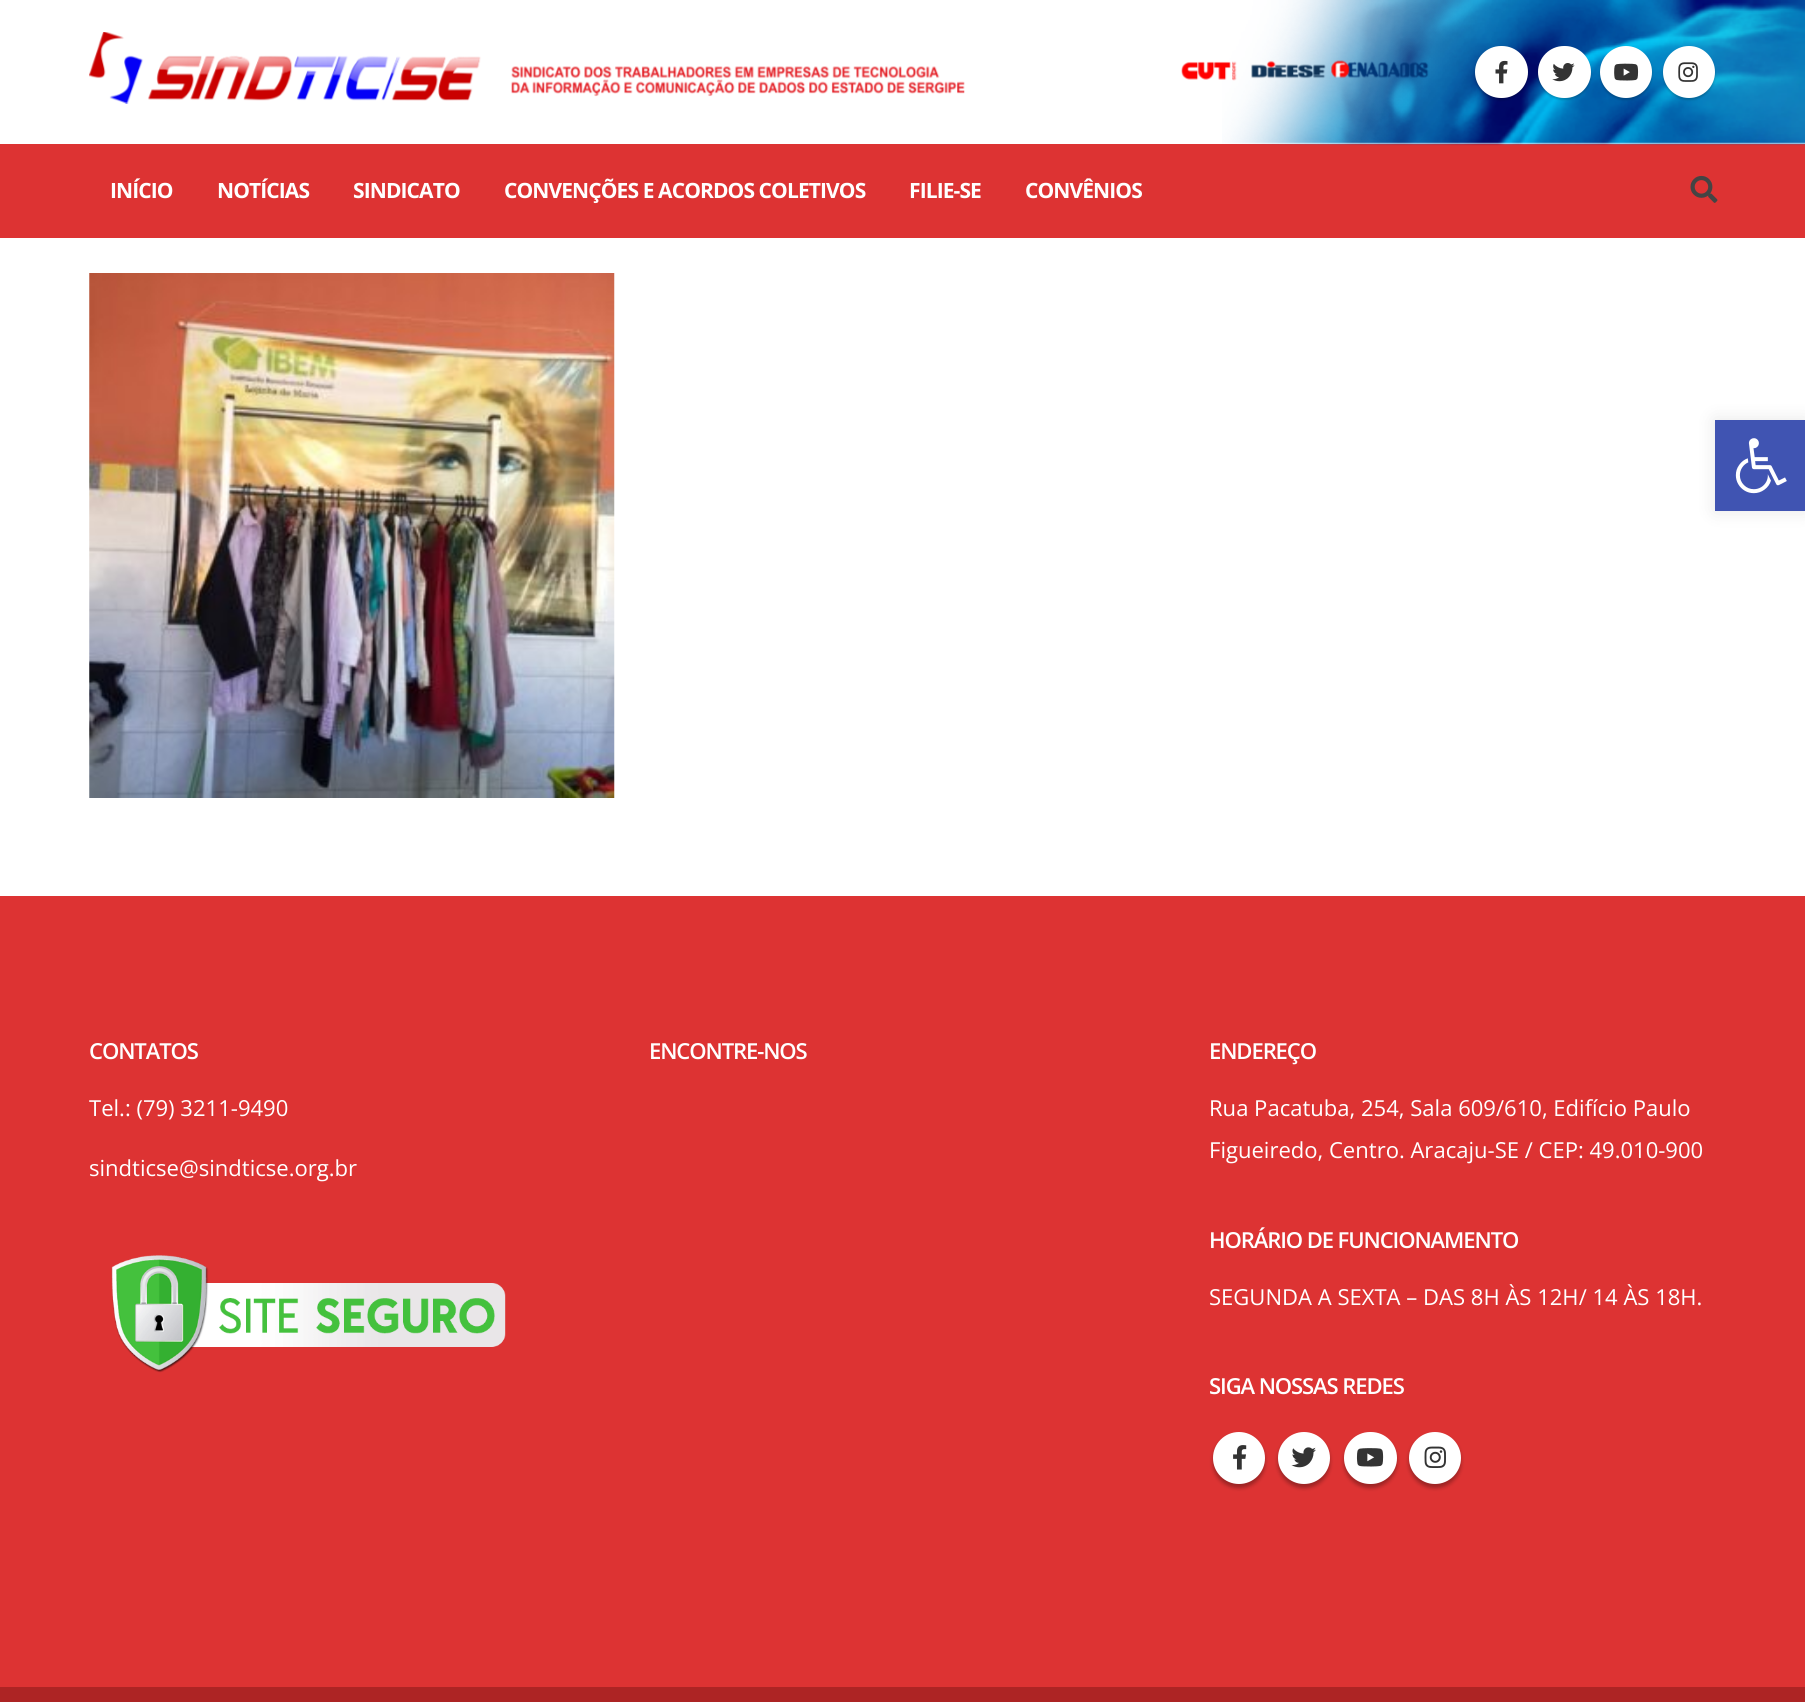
import math
import cairo


def write_spaced(ctx, x, y, s, letter, word):
	ctx.move_to(x, y)
	for ch in s:
		ctx.show_text(ch)
		ctx.rel_move_to(letter + word * (ch == ' '), 0)

def round_path(ctx, x, y, w, h, r):
	ctx.new_sub_path()
	for i, (u, v) in enumerate([(x + w - r, y + h - r), (x + r, y + h - r), (x + r, y + r), (x + w - r, y + r)]):
		ctx.arc(u, v, r, i * math.pi / 2, (i + 1) * math.pi / 2)
	ctx.close_path()

def blur_box(ctx, x, y, w, h, r, blur, alpha):
	ctx.push_group_with_content(cairo.CONTENT_ALPHA)
	ctx.set_operator(cairo.OPERATOR_SOURCE)
	for i in range(15, -16, -2):
		e = blur * i / 6
		if min(w, h) + 2 * e > 0:
			ctx.set_source_rgba(0, 0, 0, alpha * math.erfc((i - 1) / 8.5) / 2)
			round_path(ctx, x - e, y - e, w + 2 * e, h + 2 * e, max(0, min(r + e + blur * .6, min(w, h) / 2 + e)))
			ctx.fill()
	ctx.mask(ctx.pop_group())

def paste(ctx, path, x, y, w, h):
	ctx.save()
	ctx.set_source_surface(cairo.ImageSurface.create_from_png(path), x, y)
	ctx.rectangle(x, y, w, h)
	ctx.fill()
	ctx.restore()

def draw(ctx):
	ctx.set_source_rgb(1, 1, 1)
	ctx.paint()
	ctx.set_source_rgb(0.867, 0.2, 0.2)
	ctx.rectangle(0, 144, 1805, 94)
	ctx.fill()
	paste(ctx, 'media/1.png', 1222, 0, 583, 146)
	paste(ctx, 'media/2.png', 89, 32, 876, 72)
	paste(ctx, 'media/3.png', 1181, 60, 248, 21)
	ctx.set_source_rgb(0, 0, 0)
	blur_box(ctx, 1475, 47, 53, 53, 26.5, 1, 0.2)
	ctx.set_source_rgb(1, 1, 1)
	round_path(ctx, 1475, 46, 53, 52, 26)
	ctx.fill()
	paste(ctx, 'media/4.png', 1495, 60, 13, 24)
	ctx.set_source_rgb(0, 0, 0)
	blur_box(ctx, 1538, 47, 53, 53, 26.5, 1, 0.2)
	ctx.set_source_rgb(1, 1, 1)
	round_path(ctx, 1538, 46, 53, 52, 26)
	ctx.fill()
	paste(ctx, 'media/5.png', 1552, 63, 23, 19)
	ctx.set_source_rgb(0, 0, 0)
	blur_box(ctx, 1600, 47, 52, 53, 26, 1, 0.2)
	ctx.set_source_rgb(1, 1, 1)
	ctx.arc(1626, 72, 26, 0, 2 * math.pi)
	ctx.fill()
	paste(ctx, 'media/6.png', 1614, 63, 25, 18)
	ctx.set_source_rgb(0, 0, 0)
	blur_box(ctx, 1663, 47, 52, 53, 26, 1, 0.2)
	ctx.set_source_rgb(1, 1, 1)
	ctx.arc(1689, 72, 26, 0, 2 * math.pi)
	ctx.fill()
	paste(ctx, 'media/7.png', 1678, 62, 20, 20)
	ctx.select_font_face('Open Sans', cairo.FONT_SLANT_NORMAL, cairo.FONT_WEIGHT_BOLD)
	ctx.set_font_size(21)
	for x, y, s in [
		(110, 198, 'INÍCIO'),
		(217, 198, 'NOTÍCIAS'),
		(353, 198, 'SINDICATO'),
		(504, 198, 'CONVENÇÕES E ACORDOS COLETIVOS'),
		(909, 198, 'FILIE-SE'),
		(1025, 198, 'CONVÊNIOS'),
	]:
		write_spaced(ctx, x, y, s, -0.9, 0)
	paste(ctx, 'media/8.png', 1690, 175, 28, 28)
	paste(ctx, 'media/9.png', 89, 273, 526, 525)
	ctx.set_source_rgb(0.867, 0.2, 0.2)
	ctx.rectangle(0, 896, 1805, 791)
	ctx.fill()
	ctx.select_font_face('Open Sans SemiBold')
	ctx.set_font_size(22.05)
	ctx.set_source_rgb(1, 1, 1)
	write_spaced(ctx, 89, 1059, 'CONTATOS', -1.1, 0)
	ctx.select_font_face('Open Sans')
	ctx.move_to(89, 1116)
	ctx.show_text('Tel.: (79) 3211-9490')
	ctx.move_to(89, 1176)
	ctx.show_text('sindticse@sindticse.org.br')
	paste(ctx, 'media/10.png', 111, 1255, 395, 118)
	ctx.select_font_face('Open Sans SemiBold')
	write_spaced(ctx, 649, 1059, 'ENCONTRE-NOS', -1.1, 0)
	write_spaced(ctx, 1209, 1059, 'ENDEREÇO', -1.1, 0)
	ctx.select_font_face('Open Sans')
	ctx.move_to(1209, 1116)
	ctx.show_text('Rua Pacatuba, 254, Sala 609/610, Edifício Paulo')
	ctx.move_to(1209, 1158)
	ctx.show_text('Figueiredo, Centro. Aracaju-SE / CEP: 49.010-900')
	ctx.select_font_face('Open Sans SemiBold')
	write_spaced(ctx, 1209, 1248, 'HORÁRIO DE FUNCIONAMENTO', -1.1, 0)
	ctx.select_font_face('Open Sans')
	ctx.move_to(1209, 1305)
	ctx.show_text('SEGUNDA A SEXTA – DAS 8H ÀS 12H/ 14 ÀS 18H.')
	ctx.select_font_face('Open Sans SemiBold')
	write_spaced(ctx, 1209, 1394, 'SIGA NOSSAS REDES', -1.1, 0)
	ctx.set_source_rgb(0, 0, 0)
	blur_box(ctx, 1213, 1435, 52, 53, 26, 2, 0.3)
	ctx.set_source_rgb(1, 1, 1)
	ctx.arc(1239, 1458, 26, 0, 2 * math.pi)
	ctx.fill()
	paste(ctx, 'media/11.png', 1233, 1445, 14, 25)
	ctx.set_source_rgb(0, 0, 0)
	blur_box(ctx, 1278, 1435, 52, 53, 26, 2, 0.3)
	ctx.set_source_rgb(1, 1, 1)
	ctx.arc(1304, 1458, 26, 0, 2 * math.pi)
	ctx.fill()
	paste(ctx, 'media/12.png', 1291, 1447, 25, 21)
	ctx.set_source_rgb(0, 0, 0)
	blur_box(ctx, 1344, 1435, 53, 53, 26.5, 2, 0.3)
	ctx.set_source_rgb(1, 1, 1)
	round_path(ctx, 1344, 1432, 53, 52, 26)
	ctx.fill()
	paste(ctx, 'media/13.png', 1356, 1448, 28, 19)
	ctx.set_source_rgb(0, 0, 0)
	blur_box(ctx, 1409, 1435, 52, 53, 26, 2, 0.3)
	ctx.set_source_rgb(1, 1, 1)
	ctx.arc(1435, 1458, 26, 0, 2 * math.pi)
	ctx.fill()
	paste(ctx, 'media/14.png', 1424, 1446, 22, 22)
	ctx.set_source_rgb(0.678, 0.141, 0.141)
	ctx.rectangle(0, 1687, 1805, 15)
	ctx.fill()
	ctx.set_source_rgb(0, 0, 0)
	blur_box(ctx, 1715, 420, 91, 91, 0, 9, 0.1)
	ctx.set_source_rgb(0.251, 0.329, 0.698)
	ctx.rectangle(1715, 420, 90, 91)
	ctx.fill()
	paste(ctx, 'media/15.png', 1735, 438, 52, 56)


surface = cairo.ImageSurface(cairo.FORMAT_RGB24, 1805, 1702)
ctx = cairo.Context(surface)
options = cairo.FontOptions()
options.set_hint_metrics(cairo.HINT_METRICS_OFF)
options.set_hint_style(cairo.HINT_STYLE_NONE)
ctx.set_font_options(options)
ctx.set_miter_limit(4)
draw(ctx)
surface.write_to_png('image.png')
